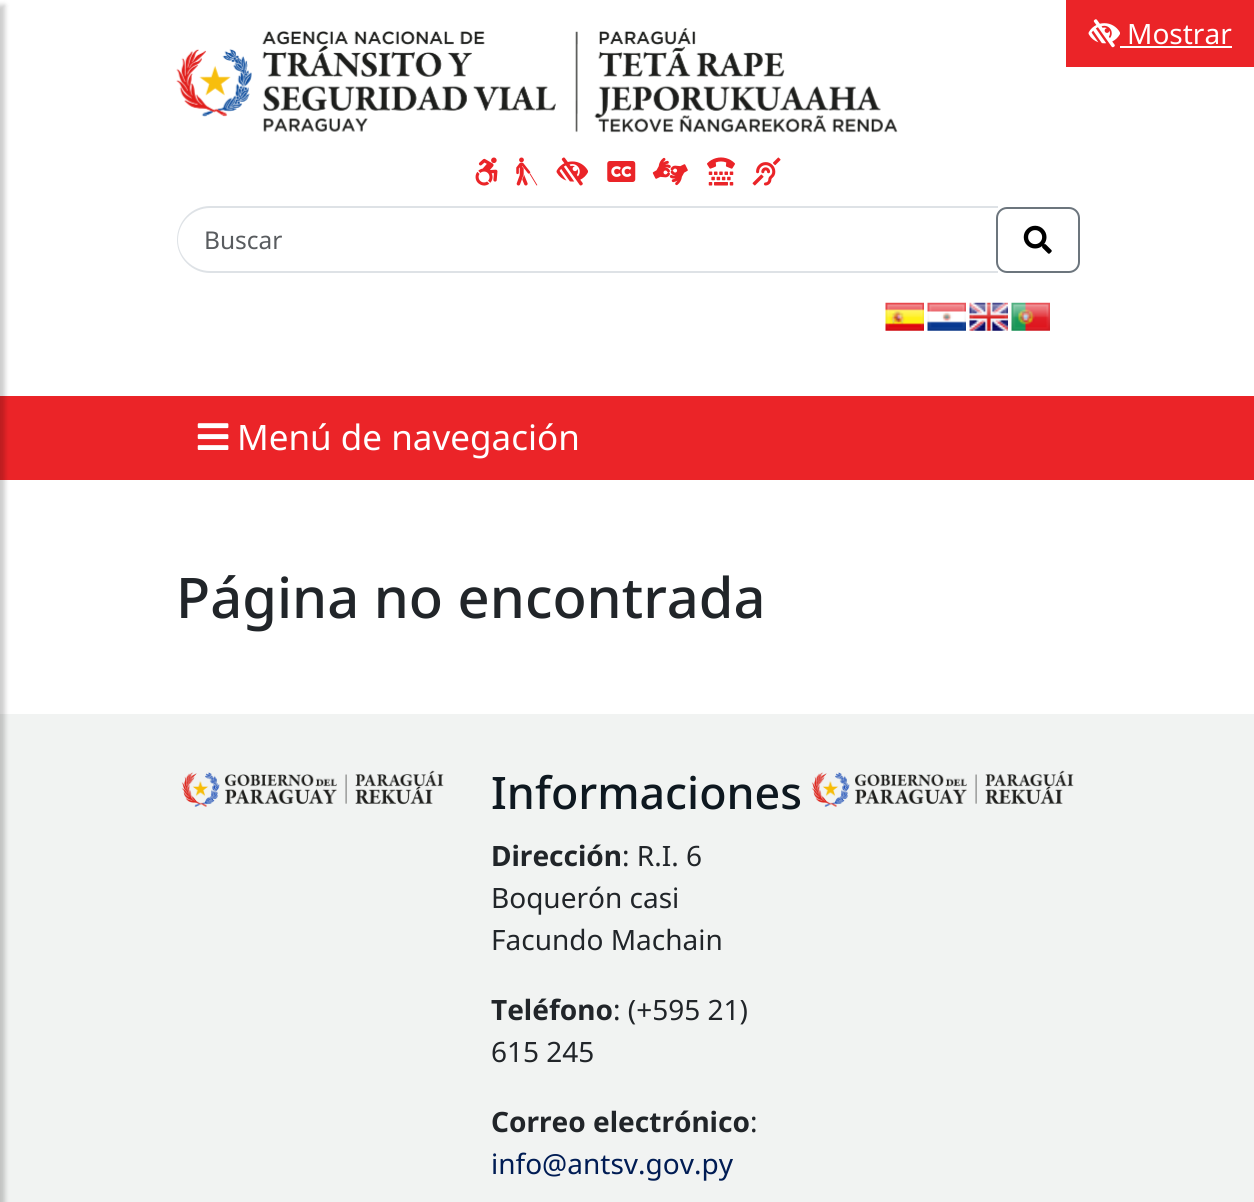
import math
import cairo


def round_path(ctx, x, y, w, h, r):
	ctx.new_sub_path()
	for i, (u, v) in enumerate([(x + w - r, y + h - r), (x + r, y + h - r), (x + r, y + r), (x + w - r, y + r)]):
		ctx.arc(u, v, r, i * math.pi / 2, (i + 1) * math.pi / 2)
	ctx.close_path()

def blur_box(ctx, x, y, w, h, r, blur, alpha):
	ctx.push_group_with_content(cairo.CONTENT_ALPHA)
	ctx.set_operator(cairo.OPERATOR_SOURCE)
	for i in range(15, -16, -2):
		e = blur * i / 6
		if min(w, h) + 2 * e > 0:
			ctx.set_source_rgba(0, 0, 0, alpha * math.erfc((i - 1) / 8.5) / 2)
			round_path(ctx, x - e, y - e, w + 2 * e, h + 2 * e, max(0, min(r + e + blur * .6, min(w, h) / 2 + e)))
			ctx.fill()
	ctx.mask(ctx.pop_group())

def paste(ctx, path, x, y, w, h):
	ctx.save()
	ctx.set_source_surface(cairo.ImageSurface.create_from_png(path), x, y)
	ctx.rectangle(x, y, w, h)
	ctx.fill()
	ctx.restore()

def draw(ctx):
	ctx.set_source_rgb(1, 1, 1)
	ctx.paint()
	ctx.set_source_rgb(0.918, 0.141, 0.157)
	ctx.rectangle(0, 396, 1254, 84)
	ctx.fill()
	ctx.set_source_rgb(0.945, 0.953, 0.949)
	ctx.rectangle(0, 714, 1254, 488)
	ctx.fill()
	ctx.set_source_rgb(0, 0, 0)
	blur_box(ctx, -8, 5, 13, 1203, 0, 2.5, 0.2)
	ctx.set_source_rgb(0.918, 0.141, 0.157)
	ctx.rectangle(1066, 0, 188, 67)
	ctx.fill()
	paste(ctx, 'media/1.png', 1088, 19, 32, 29)
	ctx.select_font_face('Noto Sans')
	ctx.set_font_size(28)
	ctx.set_source_rgb(1, 1, 1)
	ctx.move_to(1127, 44)
	ctx.show_text('Mostrar')
	ctx.rectangle(1120, 46, 112, 2)
	ctx.fill()
	paste(ctx, 'media/2.png', 176, 28, 722, 105)
	paste(ctx, 'media/3.png', 475, 157, 23, 29)
	paste(ctx, 'media/4.png', 516, 157, 22, 29)
	paste(ctx, 'media/5.png', 556, 157, 32, 29)
	paste(ctx, 'media/6.png', 607, 161, 29, 21)
	paste(ctx, 'media/7.png', 652, 157, 36, 29)
	paste(ctx, 'media/8.png', 707, 157, 28, 29)
	paste(ctx, 'media/9.png', 752, 157, 29, 29)
	ctx.set_source_rgb(0.871, 0.886, 0.902)
	ctx.set_fill_rule(cairo.FILL_RULE_EVEN_ODD)
	ctx.new_path()
	ctx.move_to(210, 206)
	ctx.line_to(998, 206)
	ctx.line_to(998, 273)
	ctx.line_to(210, 273)
	ctx.curve_to(192, 273, 177, 258, 177, 240)
	ctx.curve_to(177, 221, 192, 206, 210, 206)
	ctx.close_path()
	ctx.move_to(210, 208)
	ctx.line_to(998, 208)
	ctx.line_to(998, 271)
	ctx.line_to(210, 271)
	ctx.curve_to(193, 271, 178, 257, 178, 240)
	ctx.curve_to(178, 222, 193, 208, 210, 208)
	ctx.close_path()
	ctx.fill()
	ctx.set_font_size(24.5)
	ctx.set_source_rgb(0.349, 0.361, 0.373)
	ctx.move_to(204, 249)
	ctx.show_text('Buscar')
	round_path(ctx, 997, 208, 82, 64, 10)
	ctx.set_source_rgb(0.424, 0.459, 0.49)
	ctx.stroke()
	paste(ctx, 'media/10.png', 1023, 225, 29, 29)
	paste(ctx, 'media/11.png', 885, 302, 39, 29)
	paste(ctx, 'media/12.png', 927, 302, 39, 29)
	paste(ctx, 'media/13.png', 969, 302, 39, 29)
	paste(ctx, 'media/14.png', 1011, 302, 39, 29)
	paste(ctx, 'media/15.png', 197, 423, 32, 27)
	ctx.set_font_size(35)
	ctx.set_source_rgb(1, 1, 1)
	ctx.move_to(237, 450)
	ctx.show_text('Menú de navegación')
	ctx.select_font_face('Noto Sans Medium')
	ctx.set_font_size(56)
	ctx.set_source_rgb(0.129, 0.145, 0.161)
	ctx.move_to(176, 618)
	ctx.show_text('Página no encontrada')
	paste(ctx, 'media/16.png', 181, 770, 263, 37)
	ctx.set_font_size(44.75)
	ctx.set_source_rgb(0.055, 0.094, 0.125)
	ctx.move_to(491, 809)
	ctx.show_text('Informaciones')
	ctx.select_font_face('Noto Sans', cairo.FONT_SLANT_NORMAL, cairo.FONT_WEIGHT_BOLD)
	ctx.set_font_size(28)
	ctx.set_source_rgb(0.129, 0.145, 0.161)
	ctx.move_to(491, 866)
	ctx.show_text('Dirección')
	ctx.select_font_face('Noto Sans')
	for x, y, s in [
		(622, 866, ': R.I. 6'),
		(491, 908, 'Boquerón casi'),
		(491, 950, 'Facundo Machain'),
	]:
		ctx.move_to(x, y)
		ctx.show_text(s)
	ctx.select_font_face('Noto Sans', cairo.FONT_SLANT_NORMAL, cairo.FONT_WEIGHT_BOLD)
	ctx.move_to(491, 1020)
	ctx.show_text('Teléfono')
	ctx.select_font_face('Noto Sans')
	ctx.move_to(613, 1020)
	ctx.show_text(': (+595 21)')
	ctx.move_to(491, 1062)
	ctx.show_text('615 245')
	ctx.select_font_face('Noto Sans', cairo.FONT_SLANT_NORMAL, cairo.FONT_WEIGHT_BOLD)
	ctx.move_to(491, 1132)
	ctx.show_text('Correo electrónico')
	ctx.select_font_face('Noto Sans')
	ctx.move_to(750, 1132)
	ctx.show_text(':')
	ctx.set_source_rgb(0, 0.11, 0.329)
	ctx.move_to(491, 1174)
	ctx.show_text('info@antsv.gov.py')
	paste(ctx, 'media/16.png', 811, 770, 263, 37)


surface = cairo.ImageSurface(cairo.FORMAT_RGB24, 1254, 1202)
ctx = cairo.Context(surface)
options = cairo.FontOptions()
options.set_hint_metrics(cairo.HINT_METRICS_OFF)
options.set_hint_style(cairo.HINT_STYLE_NONE)
ctx.set_font_options(options)
ctx.set_miter_limit(4)
draw(ctx)
surface.write_to_png('image.png')
